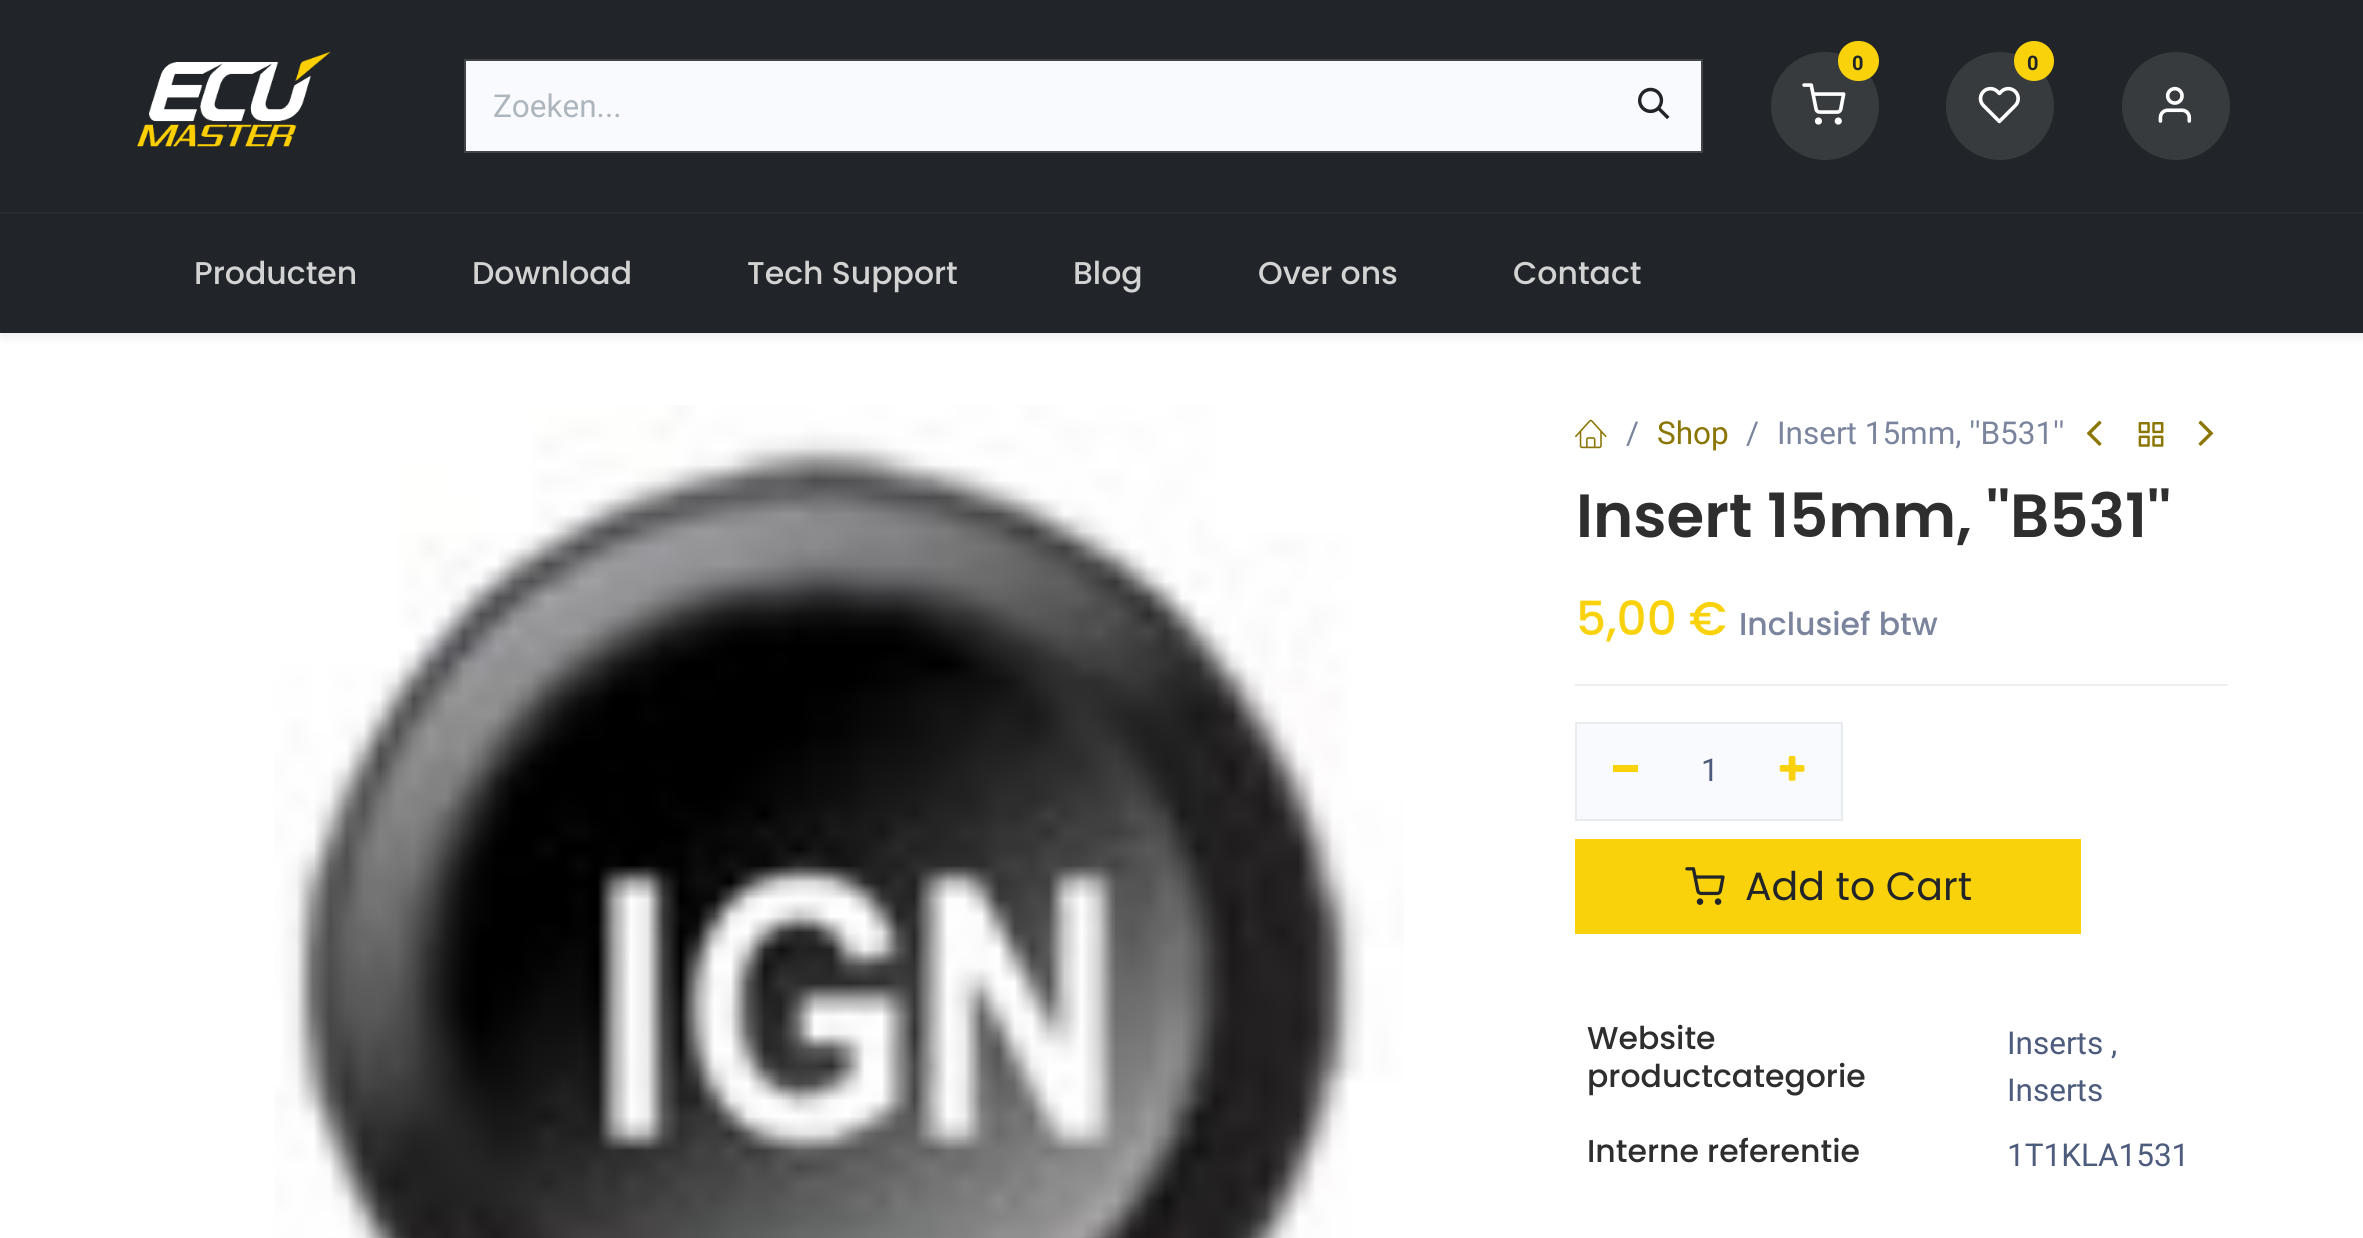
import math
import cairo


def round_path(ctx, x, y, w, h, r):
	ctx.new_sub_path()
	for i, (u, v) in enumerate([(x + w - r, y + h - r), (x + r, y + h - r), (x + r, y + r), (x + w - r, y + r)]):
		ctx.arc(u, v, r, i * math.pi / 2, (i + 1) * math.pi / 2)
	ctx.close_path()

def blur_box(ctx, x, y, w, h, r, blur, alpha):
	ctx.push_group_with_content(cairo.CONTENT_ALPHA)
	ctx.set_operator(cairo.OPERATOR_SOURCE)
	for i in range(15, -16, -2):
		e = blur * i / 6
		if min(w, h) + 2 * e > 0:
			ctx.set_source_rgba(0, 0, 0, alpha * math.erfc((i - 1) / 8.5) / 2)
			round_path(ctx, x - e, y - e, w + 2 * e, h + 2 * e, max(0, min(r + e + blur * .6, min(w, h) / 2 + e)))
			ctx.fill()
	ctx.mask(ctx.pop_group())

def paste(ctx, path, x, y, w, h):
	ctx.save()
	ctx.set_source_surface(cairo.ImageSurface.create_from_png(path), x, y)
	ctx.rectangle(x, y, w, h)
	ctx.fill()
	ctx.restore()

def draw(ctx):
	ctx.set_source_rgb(1, 1, 1)
	ctx.paint()
	ctx.set_source_rgb(0.129, 0.145, 0.161)
	ctx.rectangle(0, 0, 2363, 212)
	ctx.fill()
	ctx.set_source_rgb(0.149, 0.169, 0.2)
	ctx.rectangle(0, 212, 2363, 2)
	ctx.fill()
	paste(ctx, 'media/1.png', 137, 51, 194, 96)
	ctx.set_source_rgb(0.216, 0.231, 0.243)
	ctx.arc(1825, 106, 54, 0, 2 * math.pi)
	ctx.fill()
	paste(ctx, 'media/2.png', 1802, 83, 44, 42)
	ctx.set_source_rgb(0.976, 0.824, 0.043)
	round_path(ctx, 1839, 42, 39, 38, 19)
	ctx.fill_preserve()
	ctx.stroke()
	ctx.select_font_face('Roboto', cairo.FONT_SLANT_NORMAL, cairo.FONT_WEIGHT_BOLD)
	ctx.set_font_size(20)
	ctx.set_source_rgb(0.129, 0.145, 0.161)
	ctx.move_to(1852, 70)
	ctx.show_text('0')
	ctx.set_source_rgb(0.216, 0.231, 0.243)
	ctx.new_path()
	ctx.arc(2000, 106, 54, 0, 2 * math.pi)
	ctx.fill()
	paste(ctx, 'media/3.png', 1978, 86, 42, 38)
	ctx.set_source_rgb(0.976, 0.824, 0.043)
	ctx.arc(2034, 61, 19, 0, 2 * math.pi)
	ctx.fill_preserve()
	ctx.stroke()
	ctx.set_source_rgb(0.129, 0.145, 0.161)
	ctx.move_to(2027, 70)
	ctx.show_text('0')
	ctx.set_source_rgb(0.216, 0.231, 0.243)
	ctx.new_path()
	ctx.arc(2176, 106, 54, 0, 2 * math.pi)
	ctx.fill()
	paste(ctx, 'media/4.png', 2158, 86, 34, 37)
	ctx.rectangle(465, 60, 1237, 92)
	ctx.set_source_rgb(0.255, 0.271, 0.286)
	ctx.stroke()
	ctx.set_source_rgb(0.976, 0.98, 0.996)
	ctx.rectangle(466, 61, 1235, 90)
	ctx.fill()
	ctx.select_font_face('Roboto')
	ctx.set_font_size(31.5)
	ctx.set_source_rgb(0.678, 0.71, 0.741)
	ctx.move_to(493, 117)
	ctx.show_text('Zoeken...')
	paste(ctx, 'media/5.png', 1638, 87, 32, 33)
	ctx.set_source_rgb(0, 0, 0)
	blur_box(ctx, 0, 218, 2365, 120, 0, 4.5, 0.07)
	ctx.set_source_rgb(0.129, 0.145, 0.161)
	ctx.rectangle(0, 214, 2363, 119)
	ctx.fill()
	ctx.select_font_face('Poppins Medium')
	ctx.set_source_rgb(0.827, 0.827, 0.831)
	for x, y, s in [
		(194, 284, 'Producten'),
		(472, 284, 'Download'),
		(747, 284, 'Tech Support'),
		(1073, 284, 'Blog'),
		(1258, 284, 'Over ons'),
		(1513, 284, 'Contact'),
	]:
		ctx.move_to(x, y)
		ctx.show_text(s)
	paste(ctx, 'media/6.png', 274, 405, 1130, 833)
	paste(ctx, 'media/7.png', 1575, 419, 32, 30)
	ctx.select_font_face('Roboto')
	ctx.set_source_rgb(0.478, 0.518, 0.616)
	ctx.move_to(1626, 444)
	ctx.show_text('/')
	ctx.set_source_rgb(0.545, 0.459, 0.012)
	ctx.move_to(1657, 444)
	ctx.show_text('Shop')
	ctx.set_source_rgb(0.478, 0.518, 0.616)
	ctx.move_to(1746, 444)
	ctx.show_text('/')
	ctx.move_to(1777, 444)
	ctx.show_text('Insert 15mm, \'\'B531\'\'')
	paste(ctx, 'media/8.png', 2086, 420, 16, 26)
	paste(ctx, 'media/9.png', 2138, 422, 26, 25)
	paste(ctx, 'media/10.png', 2198, 420, 16, 26)
	ctx.select_font_face('Poppins SemiBold')
	ctx.set_font_size(61)
	ctx.set_source_rgb(0.18, 0.18, 0.18)
	ctx.move_to(1576, 537)
	ctx.show_text('Insert 15mm, \'\'B531\'\'')
	ctx.select_font_face('Poppins Medium')
	ctx.set_font_size(47)
	ctx.set_source_rgb(0.976, 0.824, 0.043)
	ctx.move_to(1576, 635)
	ctx.show_text('5,00 €')
	ctx.set_font_size(31.5)
	ctx.set_source_rgb(0.478, 0.518, 0.616)
	ctx.move_to(1739, 635)
	ctx.show_text('Inclusief btw')
	ctx.set_source_rgb(0.933, 0.937, 0.949)
	ctx.rectangle(1575, 684, 653, 2)
	ctx.fill()
	ctx.set_source_rgb(0.976, 0.98, 0.996)
	ctx.rectangle(1576, 723, 266, 97)
	ctx.fill_preserve()
	ctx.set_source_rgb(0.914, 0.925, 0.937)
	ctx.stroke()
	ctx.set_source_rgb(0.976, 0.824, 0.043)
	ctx.rectangle(1613, 765, 25, 7)
	ctx.fill()
	ctx.select_font_face('Roboto')
	ctx.set_source_rgb(0.302, 0.357, 0.486)
	ctx.move_to(1701, 781)
	ctx.show_text('1')
	paste(ctx, 'media/11.png', 1779, 756, 26, 25)
	ctx.set_source_rgb(0.976, 0.824, 0.043)
	ctx.rectangle(1575, 839, 506, 95)
	ctx.fill()
	paste(ctx, 'media/12.png', 1685, 867, 40, 38)
	ctx.select_font_face('Poppins')
	ctx.set_font_size(39.5)
	ctx.set_source_rgb(0.129, 0.145, 0.161)
	ctx.move_to(1745, 900)
	ctx.show_text('Add to Cart')
	ctx.select_font_face('Poppins Medium')
	ctx.set_font_size(31.5)
	ctx.set_source_rgb(0.18, 0.18, 0.18)
	ctx.move_to(1587, 1049)
	ctx.show_text('Website')
	ctx.move_to(1587, 1087)
	ctx.show_text('productcategorie')
	ctx.select_font_face('Roboto')
	ctx.set_source_rgb(0.302, 0.357, 0.486)
	ctx.move_to(2007, 1054)
	ctx.show_text('Inserts ,')
	ctx.move_to(2007, 1101)
	ctx.show_text('Inserts')
	ctx.select_font_face('Poppins Medium')
	ctx.set_source_rgb(0.18, 0.18, 0.18)
	ctx.move_to(1587, 1162)
	ctx.show_text('Interne referentie')
	ctx.select_font_face('Roboto')
	ctx.set_source_rgb(0.302, 0.357, 0.486)
	ctx.move_to(2007, 1166)
	ctx.show_text('1T1KLA1531')


surface = cairo.ImageSurface(cairo.FORMAT_RGB24, 2363, 1238)
ctx = cairo.Context(surface)
options = cairo.FontOptions()
options.set_hint_metrics(cairo.HINT_METRICS_OFF)
options.set_hint_style(cairo.HINT_STYLE_NONE)
ctx.set_font_options(options)
ctx.set_miter_limit(4)
draw(ctx)
surface.write_to_png('image.png')
